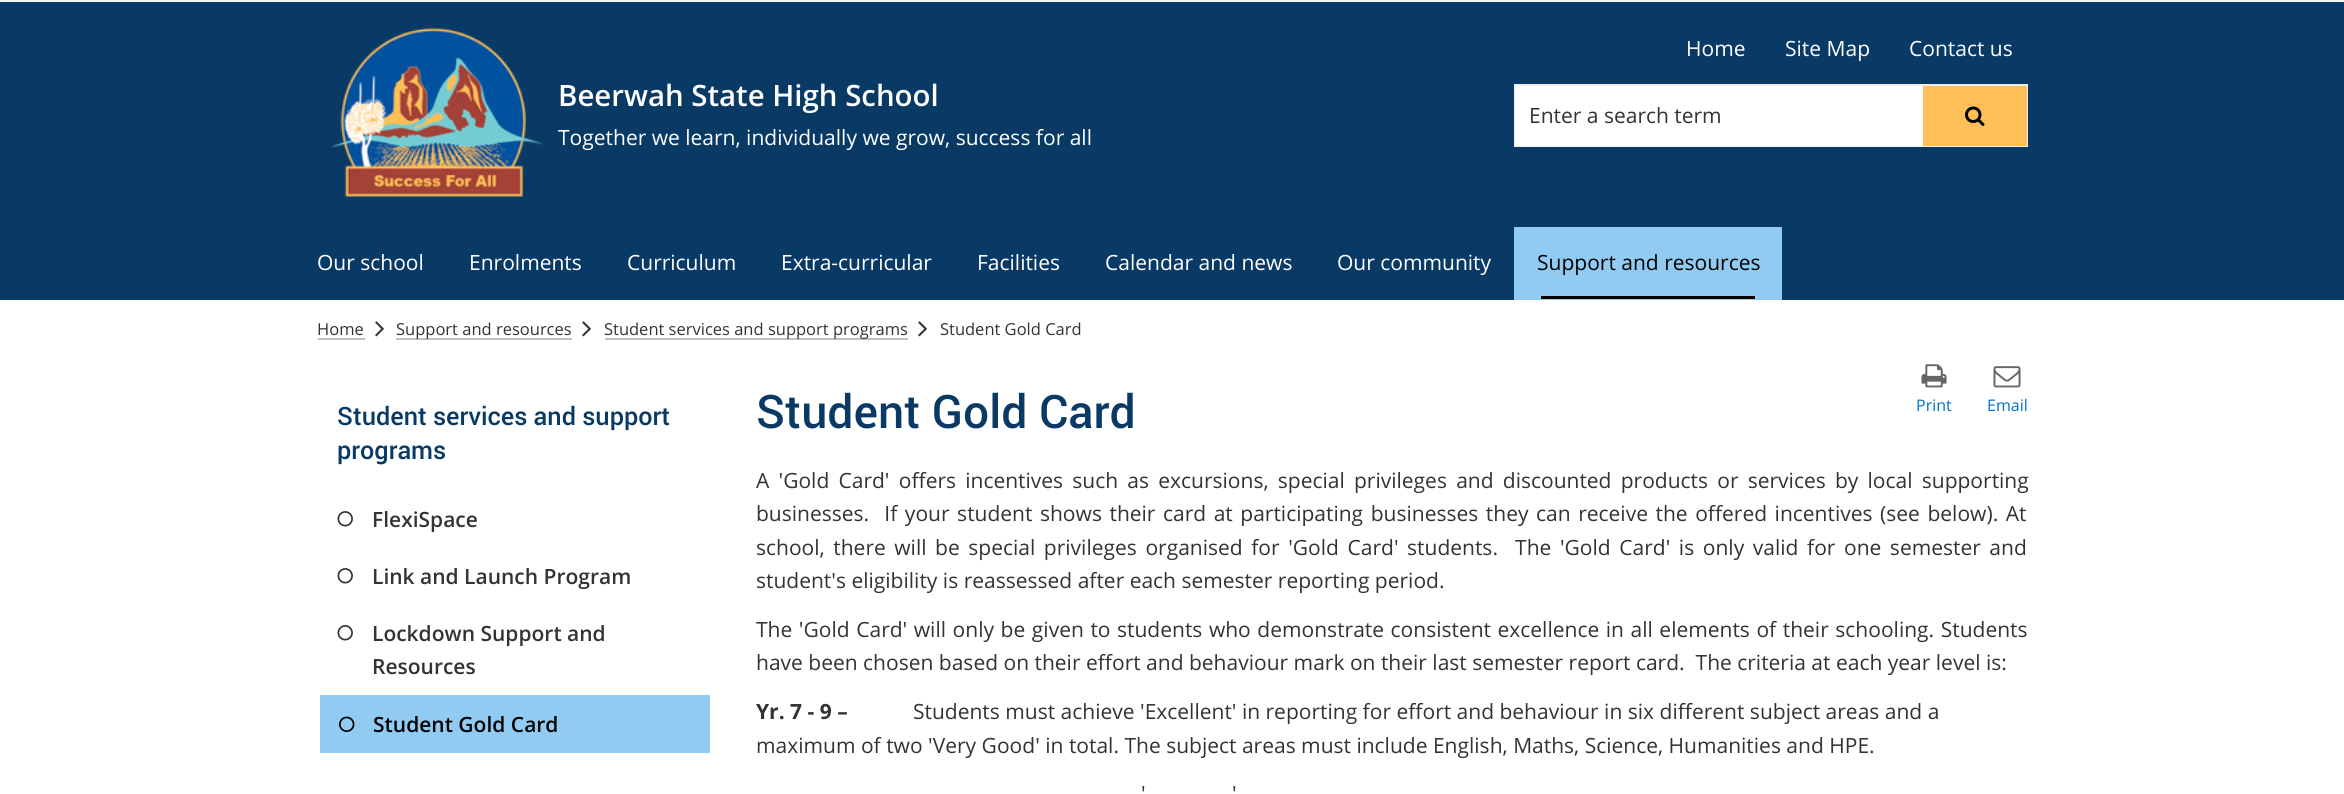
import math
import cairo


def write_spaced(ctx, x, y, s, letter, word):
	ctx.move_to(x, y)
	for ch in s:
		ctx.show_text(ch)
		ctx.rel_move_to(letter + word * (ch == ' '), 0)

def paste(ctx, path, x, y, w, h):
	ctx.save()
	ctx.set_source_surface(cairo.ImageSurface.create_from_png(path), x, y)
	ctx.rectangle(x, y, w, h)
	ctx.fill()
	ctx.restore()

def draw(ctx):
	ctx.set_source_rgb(1, 1, 1)
	ctx.paint()
	ctx.set_source_rgb(0.953, 0.953, 0.953)
	ctx.rectangle(0, 0, 2344, 2)
	ctx.fill()
	ctx.set_source_rgb(0.039, 0.227, 0.4)
	ctx.rectangle(0, 2, 2344, 298)
	ctx.fill()
	paste(ctx, 'media/1.png', 331, 28, 212, 169)
	ctx.select_font_face('Open Sans SemiBold')
	ctx.set_font_size(29.4)
	ctx.set_source_rgb(1, 1, 1)
	ctx.move_to(558, 106)
	ctx.show_text('Beerwah State High School')
	ctx.select_font_face('Open Sans')
	ctx.set_font_size(21)
	for x, y, s in [
		(558, 145, 'Together we learn, individually we grow, success for all'),
		(1686, 56, 'Home'),
		(1785, 56, 'Site Map'),
		(1909, 56, 'Contact us'),
	]:
		ctx.move_to(x, y)
		ctx.show_text(s)
	ctx.rectangle(1515, 85, 512, 61)
	ctx.set_source_rgb(0.937, 0.937, 0.937)
	ctx.stroke()
	ctx.set_source_rgb(1, 1, 1)
	ctx.rectangle(1515, 86, 408, 60)
	ctx.fill()
	ctx.set_source_rgb(0.2, 0.2, 0.2)
	ctx.move_to(1529, 123)
	ctx.show_text('Enter a search term')
	ctx.set_source_rgb(0.992, 0.749, 0.337)
	ctx.rectangle(1923, 86, 104, 60)
	ctx.fill()
	paste(ctx, 'media/2.png', 1965, 106, 20, 20)
	ctx.set_source_rgb(1, 1, 1)
	for x, y, s in [
		(317, 270, 'Our school'),
		(469, 270, 'Enrolments'),
		(627, 270, 'Curriculum'),
		(781, 270, 'Extra-curricular'),
		(977, 270, 'Facilities'),
		(1105, 270, 'Calendar and news'),
		(1337, 270, 'Our community'),
	]:
		ctx.move_to(x, y)
		ctx.show_text(s)
	ctx.set_source_rgb(0.569, 0.796, 0.949)
	ctx.rectangle(1514, 227, 268, 73)
	ctx.fill()
	ctx.set_source_rgb(0, 0, 0)
	ctx.move_to(1537, 270)
	ctx.show_text('Support and resources')
	ctx.rectangle(1541, 296, 214, 3)
	ctx.fill()
	ctx.set_font_size(16.5)
	ctx.set_source_rgb(0.2, 0.2, 0.2)
	ctx.move_to(317, 335)
	ctx.show_text('Home')
	ctx.set_source_rgb(0.749, 0.749, 0.749)
	ctx.rectangle(318, 338, 47, 2)
	ctx.fill()
	paste(ctx, 'media/3.png', 375, 321, 9, 16)
	ctx.rectangle(396, 338, 176, 2)
	ctx.fill()
	ctx.set_source_rgb(0.2, 0.2, 0.2)
	ctx.move_to(396, 335)
	ctx.show_text('Support and resources')
	paste(ctx, 'media/3.png', 582, 321, 9, 16)
	ctx.set_source_rgb(0.749, 0.749, 0.749)
	ctx.rectangle(605, 338, 303, 2)
	ctx.fill()
	ctx.set_source_rgb(0.2, 0.2, 0.2)
	ctx.move_to(604, 335)
	ctx.show_text('Student services and support programs')
	paste(ctx, 'media/3.png', 918, 321, 9, 16)
	ctx.move_to(940, 335)
	ctx.show_text('Student Gold Card')
	ctx.select_font_face('Roboto Medium')
	ctx.set_font_size(25.25)
	ctx.set_source_rgb(0.039, 0.227, 0.4)
	ctx.move_to(337, 425)
	ctx.show_text('Student services and support')
	ctx.move_to(337, 459)
	ctx.show_text('programs')
	paste(ctx, 'media/4.png', 337, 511, 16, 16)
	ctx.select_font_face('Open Sans SemiBold')
	ctx.set_font_size(21)
	ctx.set_source_rgb(0.2, 0.2, 0.2)
	ctx.move_to(372, 527)
	ctx.show_text('FlexiSpace')
	paste(ctx, 'media/4.png', 337, 568, 16, 16)
	ctx.move_to(372, 584)
	ctx.show_text('Link and Launch Program')
	paste(ctx, 'media/4.png', 337, 625, 16, 16)
	ctx.move_to(372, 641)
	ctx.show_text('Lockdown Support and')
	ctx.move_to(372, 674)
	ctx.show_text('Resources')
	ctx.set_source_rgb(0.569, 0.796, 0.949)
	ctx.rectangle(320, 695, 390, 58)
	ctx.fill()
	paste(ctx, 'media/5.png', 339, 716, 16, 16)
	ctx.set_source_rgb(0, 0, 0)
	ctx.move_to(373, 732)
	ctx.show_text('Student Gold Card')
	ctx.select_font_face('Roboto Medium')
	ctx.set_font_size(46.25)
	ctx.set_source_rgb(0.039, 0.227, 0.4)
	ctx.move_to(756, 428)
	ctx.show_text('Student Gold Card')
	paste(ctx, 'media/6.png', 1921, 364, 26, 24)
	ctx.select_font_face('Open Sans')
	ctx.set_font_size(16)
	ctx.set_source_rgb(0, 0.447, 0.776)
	ctx.move_to(1916, 411)
	ctx.show_text('Print')
	paste(ctx, 'media/7.png', 1993, 366, 28, 22)
	ctx.move_to(1987, 411)
	ctx.show_text('Email')
	ctx.set_font_size(21)
	ctx.set_source_rgb(0.2, 0.2, 0.2)
	write_spaced(ctx, 756, 488, 'A \'Gold Card\' offers incentives such as excursions, special privileges and discounted products or services by local supporting', 0, 3.75)
	write_spaced(ctx, 756, 521, 'businesses.  If your student shows their card at participating businesses they can receive the offered incentives (see below). At', 0, 2.1)
	write_spaced(ctx, 756, 555, 'school, there will be special privileges organised for \'Gold Card\' students.  The \'Gold Card\' is only valid for one semester and', 0, 3.1)
	ctx.move_to(756, 588)
	ctx.show_text('student\'s eligibility is reassessed after each semester reporting period.')
	write_spaced(ctx, 756, 637, 'The \'Gold Card\' will only be given to students who demonstrate consistent excellence in all elements of their schooling. Students', 0, 1.1)
	ctx.move_to(756, 670)
	ctx.show_text('have been chosen based on their effort and behaviour mark on their last semester report card.  The criteria at each year level is:')
	ctx.select_font_face('Open Sans', cairo.FONT_SLANT_NORMAL, cairo.FONT_WEIGHT_BOLD)
	ctx.move_to(756, 719)
	ctx.show_text('Yr. 7 - 9 –')
	ctx.select_font_face('Open Sans')
	for x, y, s in [
		(913, 719, 'Students must achieve \'Excellent\' in reporting for effort and behaviour in six different subject areas and a'),
		(756, 753, 'maximum of two \'Very Good\' in total. The subject areas must include English, Maths, Science, Humanities and HPE.'),
		(1141, 801, '\''),
		(1232, 801, '\''),
	]:
		ctx.move_to(x, y)
		ctx.show_text(s)


surface = cairo.ImageSurface(cairo.FORMAT_RGB24, 2344, 794)
ctx = cairo.Context(surface)
options = cairo.FontOptions()
options.set_hint_metrics(cairo.HINT_METRICS_OFF)
options.set_hint_style(cairo.HINT_STYLE_NONE)
ctx.set_font_options(options)
ctx.set_miter_limit(4)
draw(ctx)
surface.write_to_png('image.png')
